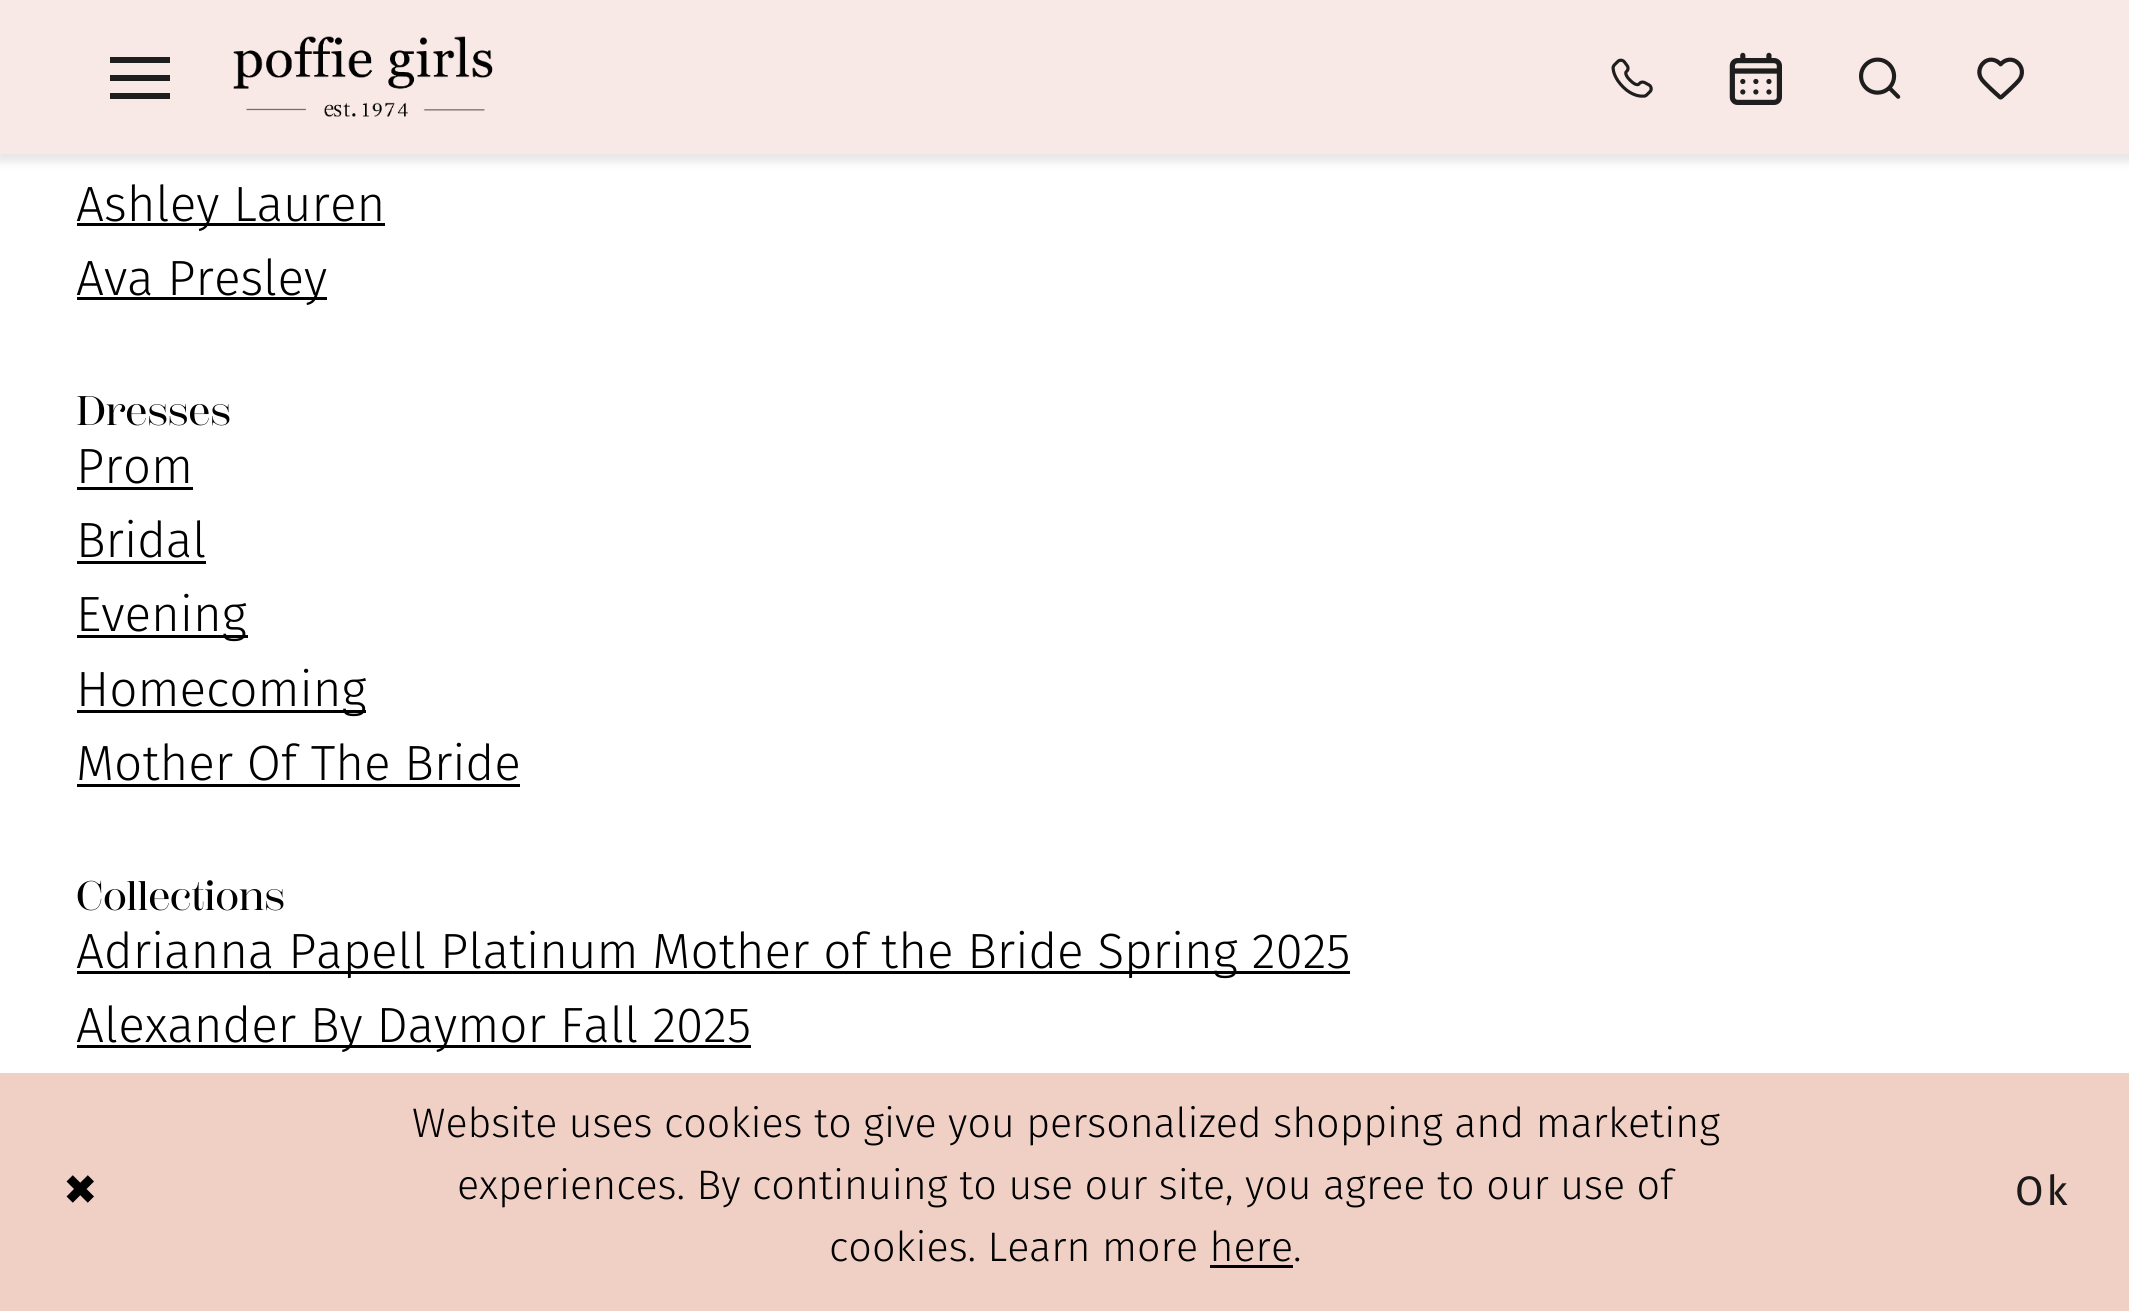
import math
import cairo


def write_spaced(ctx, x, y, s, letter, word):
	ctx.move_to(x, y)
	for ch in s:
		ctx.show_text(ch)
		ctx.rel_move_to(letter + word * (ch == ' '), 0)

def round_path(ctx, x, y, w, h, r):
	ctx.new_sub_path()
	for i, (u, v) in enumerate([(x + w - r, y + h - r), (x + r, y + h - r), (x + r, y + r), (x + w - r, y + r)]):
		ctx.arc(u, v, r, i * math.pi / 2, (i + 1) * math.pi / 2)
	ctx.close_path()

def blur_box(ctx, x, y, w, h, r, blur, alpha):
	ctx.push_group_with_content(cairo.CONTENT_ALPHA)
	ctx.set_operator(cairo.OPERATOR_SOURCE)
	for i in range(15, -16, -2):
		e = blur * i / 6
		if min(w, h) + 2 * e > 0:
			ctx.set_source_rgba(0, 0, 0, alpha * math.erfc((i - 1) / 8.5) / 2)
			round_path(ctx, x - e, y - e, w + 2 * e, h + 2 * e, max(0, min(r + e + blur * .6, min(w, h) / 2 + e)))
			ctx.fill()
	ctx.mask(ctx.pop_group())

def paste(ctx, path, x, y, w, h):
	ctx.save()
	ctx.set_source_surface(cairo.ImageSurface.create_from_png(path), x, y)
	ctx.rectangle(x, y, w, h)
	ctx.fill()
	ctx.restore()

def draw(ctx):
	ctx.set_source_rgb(1, 1, 1)
	ctx.paint()
	ctx.set_source_rgb(0.62, 0.62, 0.62)
	blur_box(ctx, -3, 3, 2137, 159, 0, 4, 0.25)
	ctx.set_source_rgb(0.973, 0.914, 0.902)
	ctx.rectangle(0, 0, 2129, 154)
	ctx.fill()
	ctx.set_source_rgb(0.118, 0.118, 0.118)
	ctx.new_path()
	ctx.move_to(110, 57)
	ctx.line_to(170, 57)
	ctx.line_to(170, 63)
	ctx.line_to(110, 63)
	ctx.close_path()
	ctx.move_to(110, 75)
	ctx.line_to(170, 75)
	ctx.line_to(170, 81)
	ctx.line_to(110, 81)
	ctx.close_path()
	ctx.move_to(110, 93)
	ctx.line_to(170, 93)
	ctx.line_to(170, 99)
	ctx.line_to(110, 99)
	ctx.close_path()
	ctx.fill()
	paste(ctx, 'media/1.png', 233, 36, 260, 81)
	paste(ctx, 'media/2.png', 1611, 58, 42, 40)
	paste(ctx, 'media/3.png', 1729, 52, 53, 53)
	paste(ctx, 'media/4.png', 1859, 57, 42, 42)
	paste(ctx, 'media/5.png', 1977, 57, 47, 43)
	ctx.set_source_rgb(0, 0, 0)
	ctx.rectangle(77, 223, 308, 3)
	ctx.fill()
	ctx.select_font_face('Fira Sans Light')
	ctx.set_font_size(49.5)
	ctx.move_to(76, 221)
	ctx.show_text('Ashley Lauren')
	ctx.rectangle(77, 297, 250, 3)
	ctx.fill()
	ctx.move_to(76, 295)
	ctx.show_text('Ava Presley')
	ctx.select_font_face('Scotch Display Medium')
	ctx.set_font_size(41.25)
	ctx.move_to(76, 425)
	ctx.show_text('Dresses')
	ctx.select_font_face('Fira Sans Light')
	ctx.set_font_size(49.5)
	ctx.move_to(76, 483)
	ctx.show_text('Prom')
	ctx.rectangle(77, 487, 116, 3)
	ctx.fill()
	ctx.move_to(76, 557)
	ctx.show_text('Bridal')
	ctx.rectangle(77, 561, 129, 3)
	ctx.fill()
	ctx.rectangle(77, 635, 171, 3)
	ctx.fill()
	ctx.move_to(76, 631)
	ctx.show_text('Evening')
	ctx.rectangle(77, 710, 289, 3)
	ctx.fill()
	ctx.move_to(76, 706)
	ctx.show_text('Homecoming')
	ctx.move_to(76, 780)
	ctx.show_text('Mother Of The Bride')
	ctx.rectangle(77, 784, 443, 3)
	ctx.fill()
	ctx.select_font_face('Scotch Display Medium')
	ctx.set_font_size(41.25)
	ctx.move_to(76, 910)
	ctx.show_text('Collections')
	ctx.rectangle(77, 971, 1273, 3)
	ctx.fill()
	ctx.select_font_face('Fira Sans Light')
	ctx.set_font_size(49.5)
	ctx.move_to(76, 968)
	ctx.show_text('Adrianna Papell Platinum Mother of the Bride Spring 2025')
	ctx.rectangle(77, 1045, 674, 3)
	ctx.fill()
	ctx.move_to(76, 1042)
	ctx.show_text('Alexander By Daymor Fall 2025')
	ctx.set_source_rgb(0.941, 0.812, 0.773)
	ctx.rectangle(0, 1073, 2129, 238)
	ctx.fill()
	ctx.select_font_face('DejaVu Sans')
	ctx.set_font_size(41.25)
	ctx.set_source_rgb(0, 0, 0)
	write_spaced(ctx, 63, 1204, '✖', 3, 0)
	ctx.select_font_face('Fira Sans Light')
	for x, y, s in [
		(412, 1137, 'Website uses cookies to give you personalized shopping and marketing'),
		(457, 1199, 'experiences. By continuing to use our site, you agree to our use of'),
		(829, 1261, 'cookies. Learn more here.'),
	]:
		ctx.move_to(x, y)
		ctx.show_text(s)
	ctx.rectangle(1210, 1265, 83, 3)
	ctx.fill()
	ctx.select_font_face('Fira Sans')
	ctx.set_source_rgb(0.106, 0.102, 0.102)
	write_spaced(ctx, 2015, 1205, 'Ok', 3, 0)


surface = cairo.ImageSurface(cairo.FORMAT_RGB24, 2129, 1311)
ctx = cairo.Context(surface)
options = cairo.FontOptions()
options.set_hint_metrics(cairo.HINT_METRICS_OFF)
options.set_hint_style(cairo.HINT_STYLE_NONE)
ctx.set_font_options(options)
ctx.set_miter_limit(4)
draw(ctx)
surface.write_to_png('image.png')
